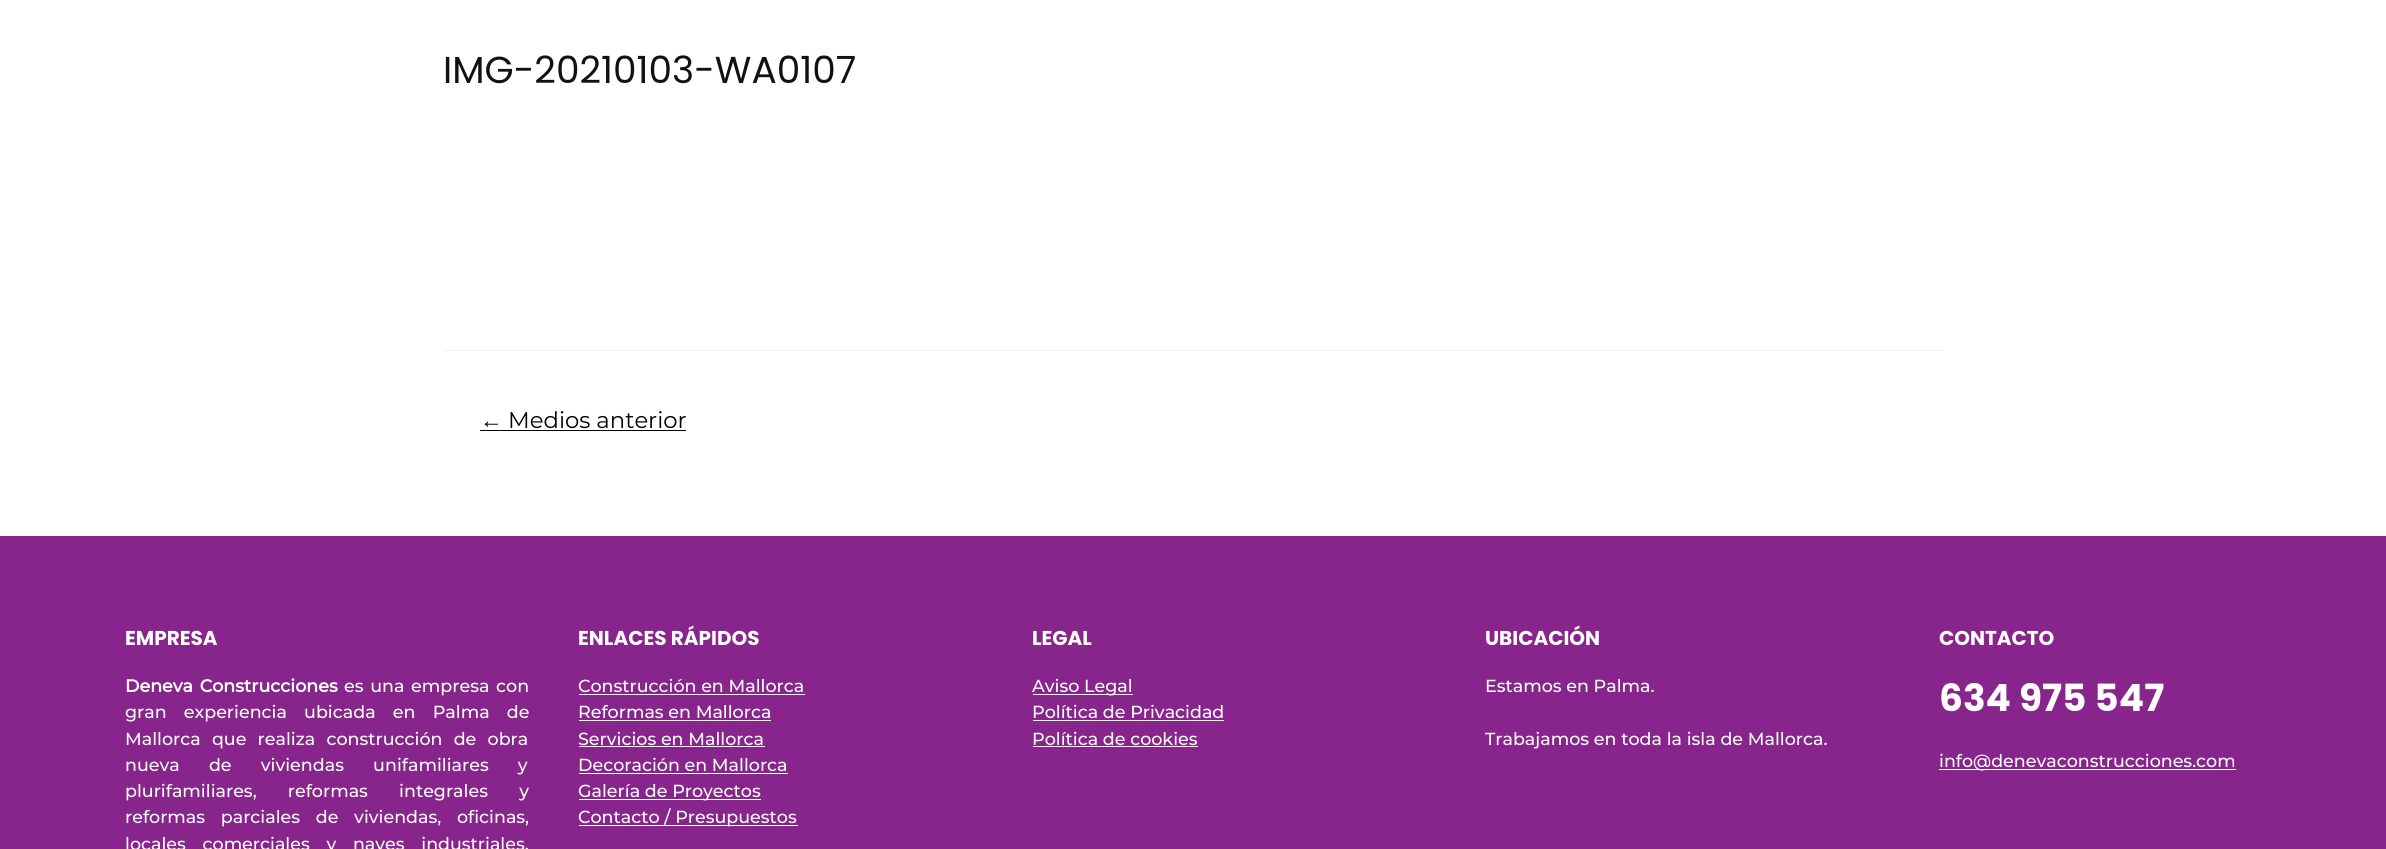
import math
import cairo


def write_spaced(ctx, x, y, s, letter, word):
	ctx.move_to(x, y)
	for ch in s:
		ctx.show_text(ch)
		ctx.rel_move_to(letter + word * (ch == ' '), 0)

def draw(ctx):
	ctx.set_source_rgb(1, 1, 1)
	ctx.paint()
	ctx.select_font_face('Poppins')
	ctx.set_font_size(37.5)
	ctx.set_source_rgb(0.067, 0.067, 0.067)
	ctx.move_to(443, 83)
	ctx.show_text('IMG-20210103-WA0107')
	ctx.set_source_rgb(0.933, 0.933, 0.933)
	ctx.rectangle(444, 350, 1500, 1)
	ctx.fill()
	ctx.select_font_face('Liberation Sans')
	ctx.set_font_size(22.75)
	ctx.set_source_rgb(0, 0, 0)
	ctx.move_to(480, 428)
	ctx.show_text('←')
	ctx.rectangle(480, 430, 206, 1)
	ctx.fill()
	ctx.select_font_face('Montserrat')
	ctx.move_to(508, 428)
	ctx.show_text('Medios anterior')
	ctx.set_source_rgb(0.533, 0.145, 0.553)
	ctx.rectangle(0, 536, 2386, 313)
	ctx.fill()
	ctx.select_font_face('Poppins', cairo.FONT_SLANT_NORMAL, cairo.FONT_WEIGHT_BOLD)
	ctx.set_font_size(20)
	ctx.set_source_rgb(1, 1, 1)
	ctx.move_to(125, 645)
	ctx.show_text('EMPRESA')
	ctx.select_font_face('Montserrat', cairo.FONT_SLANT_NORMAL, cairo.FONT_WEIGHT_BOLD)
	ctx.set_font_size(17.5)
	write_spaced(ctx, 125, 692, 'Deneva Construcciones', 0, 2)
	ctx.select_font_face('Montserrat Medium')
	write_spaced(ctx, 344, 692, 'es una empresa con', 0, 2)
	write_spaced(ctx, 125, 718, 'gran experiencia ubicada en Palma de', 0, 12.5)
	write_spaced(ctx, 125, 745, 'Mallorca que realiza construcción de obra', 0, 6.5)
	write_spaced(ctx, 125, 771, 'nueva de viviendas unifamiliares y', 0, 24.5)
	write_spaced(ctx, 125, 797, 'plurifamiliares, reformas integrales y', 0, 26.5)
	write_spaced(ctx, 125, 823, 'reformas parciales de viviendas, oficinas,', 0, 11)
	write_spaced(ctx, 125, 850, 'locales comerciales y naves industriales,', 0, 12)
	ctx.select_font_face('Poppins', cairo.FONT_SLANT_NORMAL, cairo.FONT_WEIGHT_BOLD)
	ctx.set_font_size(20)
	ctx.move_to(578, 645)
	ctx.show_text('ENLACES RÁPIDOS')
	ctx.select_font_face('Montserrat Medium')
	ctx.set_font_size(17.5)
	ctx.move_to(578, 692)
	ctx.show_text('Construcción en Mallorca')
	ctx.rectangle(579, 694, 226, 1)
	ctx.fill()
	ctx.move_to(578, 718)
	ctx.show_text('Reformas en Mallorca')
	ctx.rectangle(579, 720, 192, 1)
	ctx.fill()
	ctx.move_to(578, 745)
	ctx.show_text('Servicios en Mallorca')
	ctx.rectangle(579, 746, 186, 1)
	ctx.fill()
	ctx.move_to(578, 771)
	ctx.show_text('Decoración en Mallorca')
	ctx.rectangle(579, 773, 209, 1)
	ctx.fill()
	ctx.rectangle(579, 799, 182, 1)
	ctx.fill()
	ctx.move_to(578, 797)
	ctx.show_text('Galería de Proyectos')
	ctx.rectangle(579, 825, 219, 1)
	ctx.fill()
	ctx.move_to(578, 823)
	ctx.show_text('Contacto / Presupuestos')
	ctx.select_font_face('Poppins', cairo.FONT_SLANT_NORMAL, cairo.FONT_WEIGHT_BOLD)
	ctx.set_font_size(20)
	ctx.move_to(1032, 645)
	ctx.show_text('LEGAL')
	ctx.rectangle(1033, 694, 100, 1)
	ctx.fill()
	ctx.select_font_face('Montserrat Medium')
	ctx.set_font_size(17.5)
	ctx.move_to(1032, 692)
	ctx.show_text('Aviso Legal')
	ctx.move_to(1032, 718)
	ctx.show_text('Política de Privacidad')
	ctx.rectangle(1033, 720, 191, 1)
	ctx.fill()
	ctx.move_to(1032, 745)
	ctx.show_text('Política de cookies')
	ctx.rectangle(1033, 746, 165, 1)
	ctx.fill()
	ctx.select_font_face('Poppins', cairo.FONT_SLANT_NORMAL, cairo.FONT_WEIGHT_BOLD)
	ctx.set_font_size(20)
	ctx.move_to(1485, 645)
	ctx.show_text('UBICACIÓN')
	ctx.select_font_face('Montserrat Medium')
	ctx.set_font_size(17.5)
	ctx.move_to(1485, 692)
	ctx.show_text('Estamos en Palma.')
	ctx.move_to(1485, 745)
	ctx.show_text('Trabajamos en toda la isla de Mallorca.')
	ctx.select_font_face('Poppins', cairo.FONT_SLANT_NORMAL, cairo.FONT_WEIGHT_BOLD)
	ctx.set_font_size(20)
	ctx.move_to(1939, 645)
	ctx.show_text('CONTACTO')
	ctx.set_font_size(37.5)
	ctx.move_to(1939, 711)
	ctx.show_text('634 975 547')
	ctx.rectangle(1939, 769, 297, 1)
	ctx.fill()
	ctx.select_font_face('Montserrat Medium')
	ctx.set_font_size(17.5)
	ctx.move_to(1939, 767)
	ctx.show_text('info@denevaconstrucciones.com')


surface = cairo.ImageSurface(cairo.FORMAT_RGB24, 2386, 849)
ctx = cairo.Context(surface)
options = cairo.FontOptions()
options.set_hint_metrics(cairo.HINT_METRICS_OFF)
options.set_hint_style(cairo.HINT_STYLE_NONE)
ctx.set_font_options(options)
ctx.set_miter_limit(4)
draw(ctx)
surface.write_to_png('image.png')
